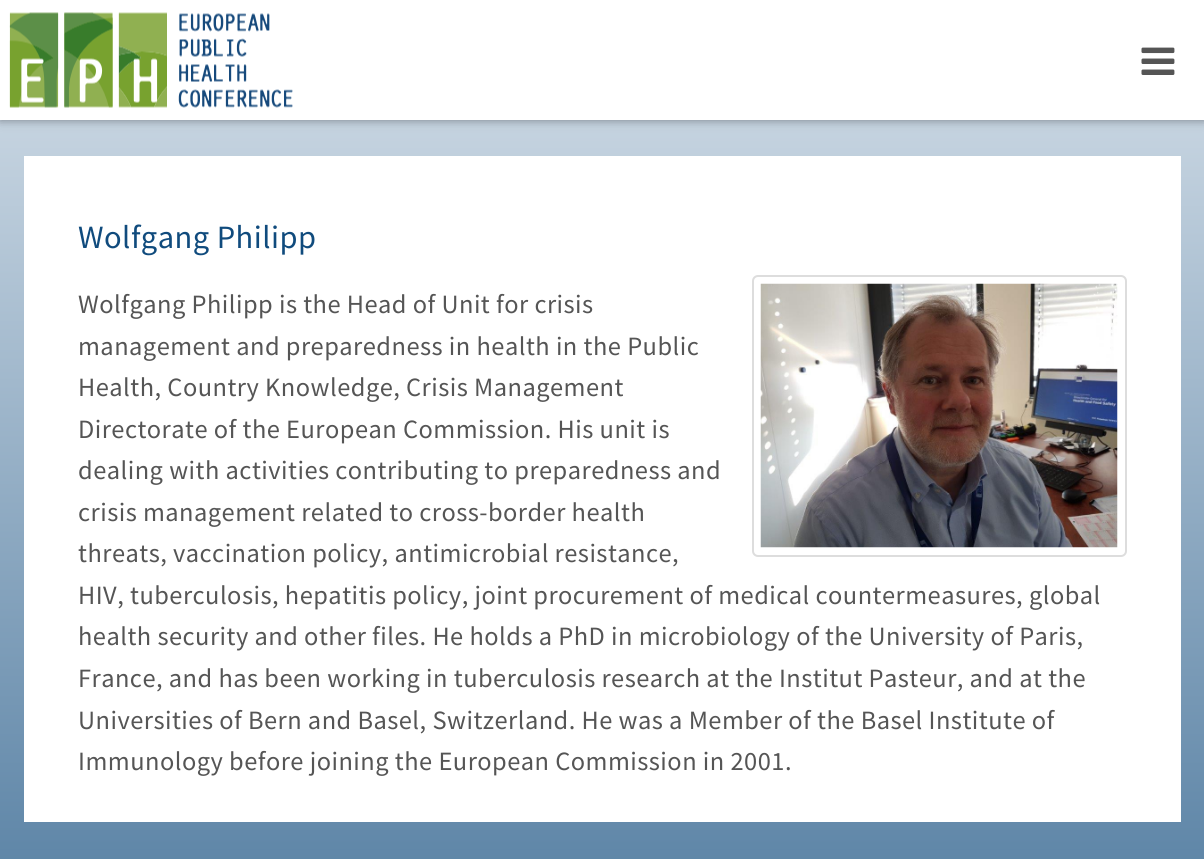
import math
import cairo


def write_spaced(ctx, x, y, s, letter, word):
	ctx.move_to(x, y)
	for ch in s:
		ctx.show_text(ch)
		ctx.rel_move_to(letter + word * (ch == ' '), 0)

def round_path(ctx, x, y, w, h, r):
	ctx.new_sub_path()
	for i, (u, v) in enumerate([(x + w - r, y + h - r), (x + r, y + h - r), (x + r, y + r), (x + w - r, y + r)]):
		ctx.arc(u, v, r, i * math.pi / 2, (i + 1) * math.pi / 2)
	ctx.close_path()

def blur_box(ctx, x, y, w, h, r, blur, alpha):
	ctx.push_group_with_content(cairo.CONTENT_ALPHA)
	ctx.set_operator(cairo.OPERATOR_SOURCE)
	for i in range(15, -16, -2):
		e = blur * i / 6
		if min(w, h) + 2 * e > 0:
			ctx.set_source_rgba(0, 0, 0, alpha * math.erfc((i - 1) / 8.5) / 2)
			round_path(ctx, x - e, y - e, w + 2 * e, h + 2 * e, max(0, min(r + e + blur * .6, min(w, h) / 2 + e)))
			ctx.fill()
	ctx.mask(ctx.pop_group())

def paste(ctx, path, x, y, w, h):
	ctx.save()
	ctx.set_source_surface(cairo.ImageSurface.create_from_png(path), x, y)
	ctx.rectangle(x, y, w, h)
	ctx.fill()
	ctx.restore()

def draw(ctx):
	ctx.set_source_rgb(1, 1, 1)
	ctx.paint()
	gradient = cairo.LinearGradient(602, 0, 602, 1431)
	gradient.add_color_stop_rgba(0, 0.839, 0.878, 0.914, 1)
	gradient.add_color_stop_rgba(1, 0.063, 0.294, 0.49, 1)
	ctx.set_source(gradient)
	ctx.rectangle(0, 120, 1204, 739)
	ctx.fill()
	ctx.set_source_rgb(0, 0, 0)
	blur_box(ctx, 0, 0, 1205, 120, 0, 5, 0.4)
	ctx.set_source_rgb(1, 1, 1)
	ctx.rectangle(0, 0, 1204, 120)
	ctx.fill()
	paste(ctx, 'media/1.png', 9, 12, 284, 96)
	paste(ctx, 'media/2.png', 1141, 47, 34, 28)
	ctx.rectangle(24, 156, 1157, 666)
	ctx.fill()
	ctx.select_font_face('Source Sans Pro')
	ctx.set_font_size(32.5)
	ctx.set_source_rgb(0.063, 0.294, 0.49)
	write_spaced(ctx, 78, 248, 'Wolfgang Philipp', 0.48, 0)
	round_path(ctx, 753, 276, 373, 280, 5)
	ctx.set_source_rgb(0.867, 0.867, 0.867)
	ctx.stroke()
	paste(ctx, 'media/3.png', 760, 283, 358, 265)
	ctx.set_font_size(26.4)
	ctx.set_source_rgb(0.333, 0.333, 0.333)
	for x, y, s in [
		(78, 313, 'Wolfgang Philipp is the Head of Unit for crisis'),
		(78, 355, 'management and preparedness in health in the Public'),
		(78, 396, 'Health, Country Knowledge, Crisis Management'),
		(78, 438, 'Directorate of the European Commission. His unit is'),
		(78, 479, 'dealing with activities contributing to preparedness and'),
		(78, 521, 'crisis management related to cross-border health'),
		(78, 562, 'threats, vaccination policy, antimicrobial resistance,'),
		(78, 604, 'HIV, tuberculosis, hepatitis policy, joint procurement of medical countermeasures, global'),
		(78, 645, 'health security and other files. He holds a PhD in microbiology of the University of Paris,'),
		(78, 687, 'France, and has been working in tuberculosis research at the Institut Pasteur, and at the'),
		(78, 729, 'Universities of Bern and Basel, Switzerland. He was a Member of the Basel Institute of'),
		(78, 770, 'Immunology before joining the European Commission in 2001.'),
	]:
		write_spaced(ctx, x, y, s, 0.48, 0)


surface = cairo.ImageSurface(cairo.FORMAT_RGB24, 1204, 859)
ctx = cairo.Context(surface)
options = cairo.FontOptions()
options.set_hint_metrics(cairo.HINT_METRICS_OFF)
options.set_hint_style(cairo.HINT_STYLE_NONE)
ctx.set_font_options(options)
ctx.set_miter_limit(4)
draw(ctx)
surface.write_to_png('image.png')
